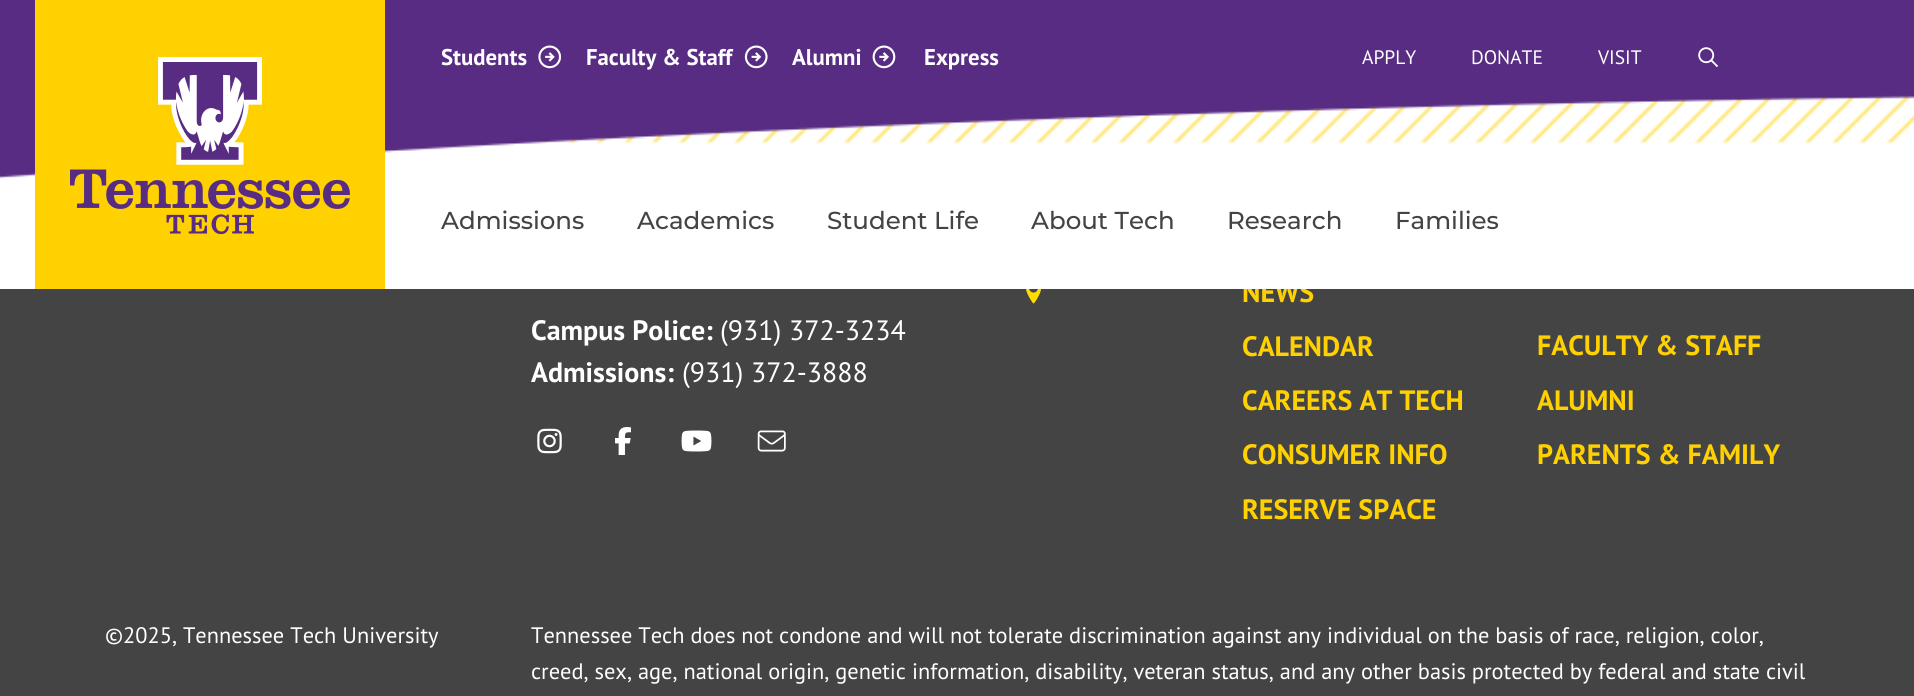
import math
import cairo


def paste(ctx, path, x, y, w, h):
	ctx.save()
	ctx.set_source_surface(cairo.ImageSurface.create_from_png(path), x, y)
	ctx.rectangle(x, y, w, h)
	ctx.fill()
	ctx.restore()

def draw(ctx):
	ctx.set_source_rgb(0.267, 0.267, 0.267)
	ctx.paint()
	ctx.select_font_face('PT Sans', cairo.FONT_SLANT_NORMAL, cairo.FONT_WEIGHT_BOLD)
	ctx.set_font_size(28)
	ctx.set_source_rgb(1, 0.82, 0)
	ctx.move_to(1242, 302)
	ctx.show_text('NEWS')
	ctx.set_source_rgb(1, 1, 1)
	ctx.rectangle(0, 95, 1914, 194)
	ctx.fill()
	paste(ctx, 'media/1.png', 0, 0, 1914, 179)
	ctx.set_source_rgb(1, 0.82, 0)
	ctx.rectangle(35, 0, 350, 289)
	ctx.fill()
	paste(ctx, 'media/2.png', 70, 57, 280, 178)
	ctx.set_font_size(22.75)
	ctx.set_source_rgb(1, 1, 1)
	ctx.move_to(441, 65)
	ctx.show_text('Students')
	paste(ctx, 'media/3.png', 538, 45, 24, 24)
	ctx.move_to(586, 65)
	ctx.show_text('Faculty & Staff')
	paste(ctx, 'media/4.png', 744, 45, 24, 24)
	ctx.move_to(792, 65)
	ctx.show_text('Alumni')
	paste(ctx, 'media/5.png', 872, 45, 24, 24)
	ctx.move_to(924, 65)
	ctx.show_text('Express')
	ctx.select_font_face('PT Sans')
	ctx.set_font_size(19.5)
	for x, y, s in [
		(1362, 64, 'APPLY'),
		(1471, 64, 'DONATE'),
		(1598, 64, 'VISIT'),
	]:
		ctx.move_to(x, y)
		ctx.show_text(s)
	paste(ctx, 'media/6.png', 1698, 47, 21, 21)
	ctx.select_font_face('Montserrat Medium')
	ctx.set_font_size(24.5)
	ctx.set_source_rgb(0.267, 0.267, 0.267)
	for x, y, s in [
		(441, 229, 'Admissions'),
		(637, 229, 'Academics'),
		(827, 229, 'Student Life'),
		(1031, 229, 'About Tech'),
		(1227, 229, 'Research'),
		(1395, 229, 'Families'),
	]:
		ctx.move_to(x, y)
		ctx.show_text(s)
	paste(ctx, 'media/7.png', 1026, 289, 15, 15)
	ctx.select_font_face('PT Sans', cairo.FONT_SLANT_NORMAL, cairo.FONT_WEIGHT_BOLD)
	ctx.set_font_size(28)
	ctx.set_source_rgb(1, 0.82, 0)
	for x, y, s in [
		(1242, 356, 'CALENDAR'),
		(1242, 410, 'CAREERS AT TECH'),
		(1242, 464, 'CONSUMER INFO'),
		(1242, 519, 'RESERVE SPACE'),
	]:
		ctx.move_to(x, y)
		ctx.show_text(s)
	ctx.set_source_rgb(1, 1, 1)
	ctx.move_to(531, 340)
	ctx.show_text('Campus Police:')
	ctx.select_font_face('PT Sans')
	ctx.move_to(720, 340)
	ctx.show_text('(931) 372-3234')
	ctx.select_font_face('PT Sans', cairo.FONT_SLANT_NORMAL, cairo.FONT_WEIGHT_BOLD)
	ctx.move_to(531, 382)
	ctx.show_text('Admissions:')
	ctx.select_font_face('PT Sans')
	ctx.move_to(682, 382)
	ctx.show_text('(931) 372-3888')
	paste(ctx, 'media/8.png', 537, 428, 25, 26)
	paste(ctx, 'media/9.png', 615, 427, 16, 28)
	paste(ctx, 'media/10.png', 681, 430, 31, 22)
	paste(ctx, 'media/11.png', 757, 430, 29, 22)
	ctx.select_font_face('PT Sans', cairo.FONT_SLANT_NORMAL, cairo.FONT_WEIGHT_BOLD)
	ctx.set_source_rgb(1, 0.82, 0)
	for x, y, s in [
		(1537, 355, 'FACULTY & STAFF'),
		(1537, 410, 'ALUMNI'),
		(1537, 464, 'PARENTS & FAMILY'),
	]:
		ctx.move_to(x, y)
		ctx.show_text(s)
	ctx.select_font_face('PT Sans')
	ctx.set_font_size(22.4)
	ctx.set_source_rgb(1, 1, 1)
	for x, y, s in [
		(105, 643, '©2025, Tennessee Tech University'),
		(531, 643, 'Tennessee Tech does not condone and will not tolerate discrimination against any individual on the basis of race, religion, color,'),
		(531, 679, 'creed, sex, age, national origin, genetic information, disability, veteran status, and any other basis protected by federal and state civil'),
	]:
		ctx.move_to(x, y)
		ctx.show_text(s)


surface = cairo.ImageSurface(cairo.FORMAT_RGB24, 1914, 696)
ctx = cairo.Context(surface)
options = cairo.FontOptions()
options.set_hint_metrics(cairo.HINT_METRICS_OFF)
options.set_hint_style(cairo.HINT_STYLE_NONE)
ctx.set_font_options(options)
ctx.set_miter_limit(4)
draw(ctx)
surface.write_to_png('image.png')
